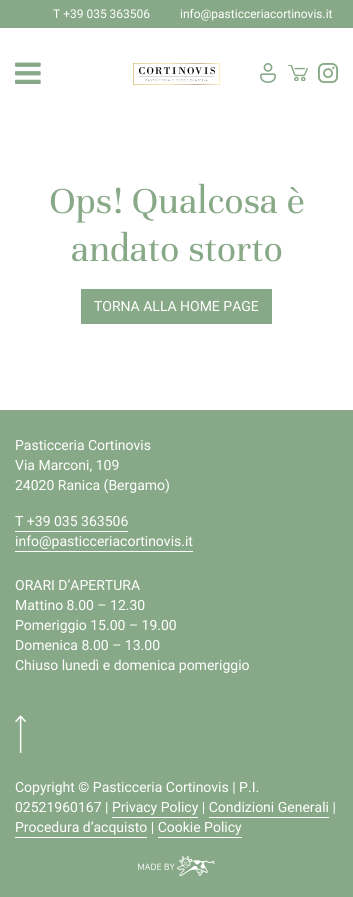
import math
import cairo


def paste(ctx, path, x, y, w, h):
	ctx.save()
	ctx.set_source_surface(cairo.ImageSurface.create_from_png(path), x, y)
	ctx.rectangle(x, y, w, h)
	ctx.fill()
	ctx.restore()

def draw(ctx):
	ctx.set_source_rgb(1, 1, 1)
	ctx.paint()
	ctx.set_source_rgb(0.533, 0.663, 0.529)
	ctx.rectangle(0, 0, 353, 28)
	ctx.fill()
	ctx.select_font_face('Roboto')
	ctx.set_font_size(12)
	ctx.set_source_rgb(1, 1, 1)
	ctx.move_to(53, 18)
	ctx.show_text('T +39 035 363506')
	ctx.move_to(180, 18)
	ctx.show_text('info@pasticceriacortinovis.it')
	paste(ctx, 'media/1.png', 15, 62, 26, 22)
	paste(ctx, 'media/2.png', 133, 63, 87, 22)
	paste(ctx, 'media/3.png', 260, 63, 16, 20)
	paste(ctx, 'media/4.png', 288, 65, 20, 16)
	paste(ctx, 'media/5.png', 318, 63, 20, 20)
	ctx.select_font_face('Unna')
	ctx.set_font_size(40)
	ctx.set_source_rgb(0.533, 0.663, 0.529)
	ctx.move_to(49, 213)
	ctx.show_text('Ops! Qualcosa è')
	ctx.move_to(71, 261)
	ctx.show_text('andato storto')
	ctx.rectangle(81, 289, 191, 35)
	ctx.fill()
	ctx.select_font_face('Roboto')
	ctx.set_font_size(14)
	ctx.set_source_rgb(1, 1, 1)
	ctx.move_to(94, 311)
	ctx.show_text('TORNA ALLA HOME PAGE')
	ctx.set_source_rgb(0.533, 0.663, 0.529)
	ctx.rectangle(0, 410, 353, 487)
	ctx.fill()
	ctx.set_source_rgb(1, 1, 1)
	for x, y, s in [
		(15, 450, 'Pasticceria Cortinovis'),
		(15, 470, 'Via Marconi, 109'),
		(15, 490, '24020 Ranica (Bergamo)'),
		(15, 526, 'T +39 035 363506'),
	]:
		ctx.move_to(x, y)
		ctx.show_text(s)
	ctx.rectangle(15, 531, 113, 1)
	ctx.fill()
	ctx.move_to(15, 546)
	ctx.show_text('info@pasticceriacortinovis.it')
	ctx.rectangle(15, 551, 178, 1)
	ctx.fill()
	for x, y, s in [
		(15, 590, 'ORARI D’APERTURA'),
		(15, 610, 'Mattino 8.00 – 12.30'),
		(15, 630, 'Pomeriggio 15.00 – 19.00'),
		(15, 650, 'Domenica 8.00 – 13.00'),
		(15, 670, 'Chiuso lunedì e domenica pomeriggio'),
	]:
		ctx.move_to(x, y)
		ctx.show_text(s)
	paste(ctx, 'media/6.png', 15, 715, 11, 38)
	ctx.move_to(15, 792)
	ctx.show_text('Copyright © Pasticceria Cortinovis | P.I.')
	ctx.move_to(15, 812)
	ctx.show_text('02521960167 | Privacy Policy | Condizioni Generali |')
	ctx.rectangle(112, 817, 86, 1)
	ctx.fill()
	ctx.rectangle(209, 817, 120, 1)
	ctx.fill()
	ctx.move_to(15, 832)
	ctx.show_text('Procedura d’acquisto | Cookie Policy')
	ctx.rectangle(15, 837, 132, 1)
	ctx.fill()
	ctx.rectangle(158, 837, 84, 1)
	ctx.fill()
	paste(ctx, 'media/7.png', 138, 856, 77, 20)


surface = cairo.ImageSurface(cairo.FORMAT_RGB24, 353, 897)
ctx = cairo.Context(surface)
options = cairo.FontOptions()
options.set_hint_metrics(cairo.HINT_METRICS_OFF)
options.set_hint_style(cairo.HINT_STYLE_NONE)
ctx.set_font_options(options)
ctx.set_miter_limit(4)
draw(ctx)
surface.write_to_png('image.png')
